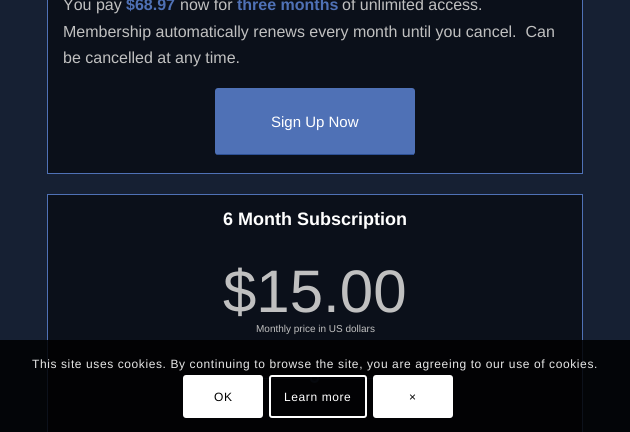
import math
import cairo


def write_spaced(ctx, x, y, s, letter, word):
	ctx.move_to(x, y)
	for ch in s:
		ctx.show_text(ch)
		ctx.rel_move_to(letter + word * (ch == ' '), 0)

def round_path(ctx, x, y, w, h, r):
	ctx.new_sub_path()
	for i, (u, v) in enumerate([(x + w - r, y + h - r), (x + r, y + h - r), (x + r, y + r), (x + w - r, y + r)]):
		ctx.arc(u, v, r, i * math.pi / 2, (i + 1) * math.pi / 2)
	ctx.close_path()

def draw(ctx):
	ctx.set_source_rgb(0.086, 0.125, 0.2)
	ctx.paint()
	ctx.set_source_rgb(0.043, 0.063, 0.102)
	ctx.rectangle(47.5, -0.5, 535, 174)
	ctx.fill_preserve()
	ctx.set_source_rgb(0.31, 0.443, 0.714)
	ctx.set_line_width(1)
	ctx.stroke()
	ctx.select_font_face('Liberation Sans')
	ctx.set_font_size(16)
	ctx.set_source_rgb(0.753, 0.753, 0.753)
	ctx.move_to(63, 10)
	ctx.show_text('You pay')
	ctx.select_font_face('Liberation Sans', cairo.FONT_SLANT_NORMAL, cairo.FONT_WEIGHT_BOLD)
	ctx.set_source_rgb(0.31, 0.443, 0.714)
	ctx.move_to(126, 10)
	ctx.show_text('$68.97')
	ctx.select_font_face('Liberation Sans')
	ctx.set_source_rgb(0.753, 0.753, 0.753)
	ctx.move_to(180, 10)
	ctx.show_text('now for')
	ctx.select_font_face('Liberation Sans', cairo.FONT_SLANT_NORMAL, cairo.FONT_WEIGHT_BOLD)
	ctx.set_source_rgb(0.31, 0.443, 0.714)
	ctx.move_to(237, 10)
	ctx.show_text('three months')
	ctx.select_font_face('Liberation Sans')
	ctx.set_source_rgb(0.753, 0.753, 0.753)
	for x, y, s in [
		(342, 10, 'of unlimited access.'),
		(63, 37, 'Membership automatically renews every month until you cancel.  Can'),
		(63, 63, 'be cancelled at any time.'),
	]:
		ctx.move_to(x, y)
		ctx.show_text(s)
	ctx.set_source_rgb(0.31, 0.443, 0.714)
	round_path(ctx, 215, 88, 200, 67, 3)
	ctx.fill()
	ctx.set_source_rgb(0.176, 0.314, 0.58)
	ctx.rectangle(217, 154, 197, 1)
	ctx.fill()
	ctx.set_font_size(15)
	ctx.set_source_rgb(1, 1, 1)
	ctx.move_to(271, 127)
	ctx.show_text('Sign Up Now')
	ctx.set_source_rgb(0.043, 0.063, 0.102)
	ctx.rectangle(47.5, 194.5, 535, 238)
	ctx.fill_preserve()
	ctx.set_source_rgb(0.31, 0.443, 0.714)
	ctx.stroke()
	ctx.select_font_face('Liberation Sans', cairo.FONT_SLANT_NORMAL, cairo.FONT_WEIGHT_BOLD)
	ctx.set_font_size(18)
	ctx.set_source_rgb(1, 1, 1)
	ctx.move_to(223, 225)
	ctx.show_text('6 Month Subscription')
	ctx.select_font_face('Liberation Sans')
	ctx.set_font_size(60)
	ctx.set_source_rgb(0.753, 0.753, 0.753)
	ctx.move_to(223, 312)
	ctx.show_text('$15.00')
	ctx.set_font_size(10)
	ctx.move_to(256, 332)
	ctx.show_text('Monthly price in US dollars')
	ctx.set_source_rgb(0.145, 0.208, 0.329)
	ctx.rectangle(263, 378, 110, 1)
	ctx.fill()
	ctx.set_source_rgb(0.086, 0.125, 0.2)
	ctx.arc(314.5, 378.5, 3.5, 0, 2 * math.pi)
	ctx.fill_preserve()
	ctx.set_source_rgb(0.145, 0.208, 0.329)
	ctx.set_line_width(2)
	ctx.stroke()
	ctx.set_source_rgba(0, 0, 0, 0.85)
	ctx.rectangle(0, 340, 630, 92)
	ctx.fill()
	ctx.set_font_size(12)
	ctx.set_source_rgb(0.902, 0.902, 0.902)
	write_spaced(ctx, 32, 368, 'This site uses cookies. By continuing to browse the site, you are agreeing to our use of cookies.', 0.6, 0)
	ctx.set_source_rgb(1, 1, 1)
	round_path(ctx, 183, 375, 80, 43, 3)
	ctx.fill()
	ctx.set_source_rgb(0, 0, 0)
	write_spaced(ctx, 214, 401, 'OK', 0.6, 0)
	round_path(ctx, 270, 376, 96, 41, 2)
	ctx.set_source_rgb(1, 1, 1)
	ctx.stroke()
	write_spaced(ctx, 284, 401, 'Learn more', 0.6, 0)
	round_path(ctx, 373, 375, 80, 43, 3)
	ctx.fill()
	ctx.set_source_rgb(0, 0, 0)
	write_spaced(ctx, 409, 401, '×', 0.6, 0)


surface = cairo.ImageSurface(cairo.FORMAT_RGB24, 630, 432)
ctx = cairo.Context(surface)
options = cairo.FontOptions()
options.set_hint_metrics(cairo.HINT_METRICS_OFF)
options.set_hint_style(cairo.HINT_STYLE_NONE)
ctx.set_font_options(options)
ctx.set_miter_limit(4)
draw(ctx)
surface.write_to_png('image.png')
